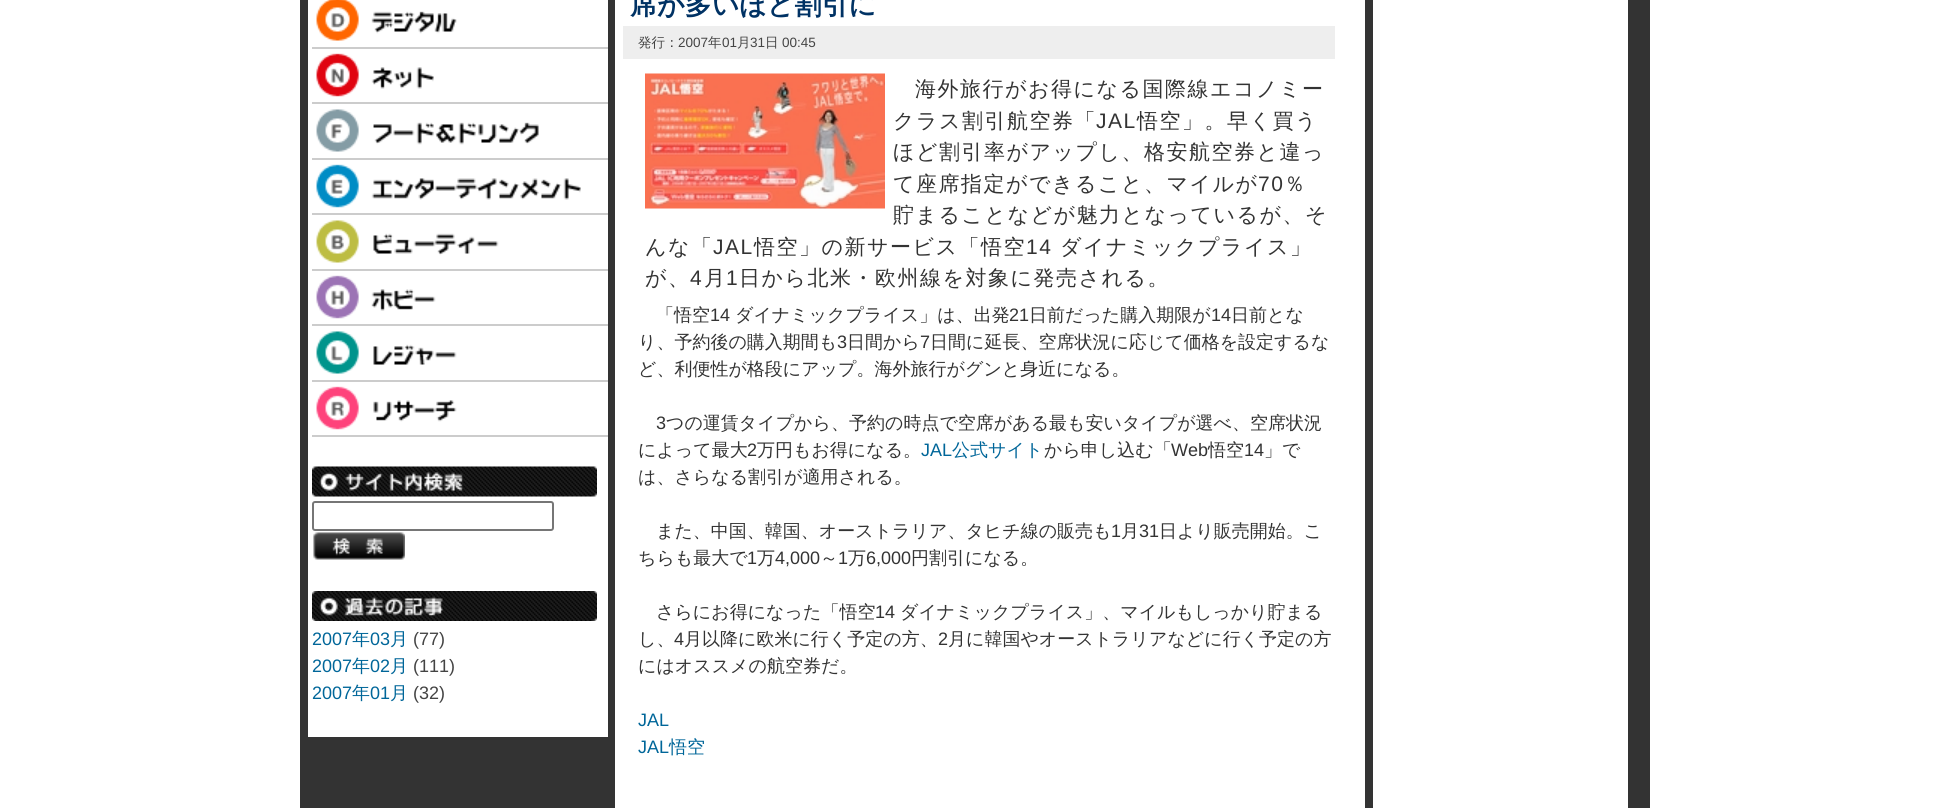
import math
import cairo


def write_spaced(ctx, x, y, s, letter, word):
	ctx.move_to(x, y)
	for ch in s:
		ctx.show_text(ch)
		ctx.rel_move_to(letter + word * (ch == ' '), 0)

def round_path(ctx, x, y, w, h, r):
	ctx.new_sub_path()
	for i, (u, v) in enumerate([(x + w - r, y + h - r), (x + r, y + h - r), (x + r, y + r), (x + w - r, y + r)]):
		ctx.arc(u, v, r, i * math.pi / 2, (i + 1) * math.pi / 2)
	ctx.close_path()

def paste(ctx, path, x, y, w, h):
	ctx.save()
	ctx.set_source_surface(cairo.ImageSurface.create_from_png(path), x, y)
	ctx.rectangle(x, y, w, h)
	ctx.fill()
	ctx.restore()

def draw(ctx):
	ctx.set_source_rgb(1, 1, 1)
	ctx.paint()
	ctx.set_source_rgb(0.2, 0.2, 0.2)
	ctx.rectangle(300, 0, 1350, 808)
	ctx.fill()
	ctx.set_source_rgb(1, 1, 1)
	ctx.rectangle(308, 0, 300, 737)
	ctx.fill()
	ctx.set_source_rgb(0.8, 0.8, 0.8)
	ctx.rectangle(312, 47, 296, 2)
	ctx.fill()
	paste(ctx, 'media/1.png', 316, 0, 141, 41)
	ctx.rectangle(312, 102, 296, 2)
	ctx.fill()
	paste(ctx, 'media/2.png', 316, 53, 118, 44)
	ctx.rectangle(312, 158, 296, 2)
	ctx.fill()
	paste(ctx, 'media/3.png', 316, 109, 223, 43)
	ctx.rectangle(312, 213, 296, 2)
	ctx.fill()
	paste(ctx, 'media/4.png', 316, 164, 265, 44)
	ctx.rectangle(312, 269, 296, 2)
	ctx.fill()
	paste(ctx, 'media/5.png', 316, 220, 183, 43)
	ctx.rectangle(312, 324, 296, 2)
	ctx.fill()
	paste(ctx, 'media/6.png', 316, 275, 120, 44)
	ctx.rectangle(312, 380, 296, 2)
	ctx.fill()
	paste(ctx, 'media/7.png', 316, 331, 141, 43)
	ctx.rectangle(312, 435, 296, 2)
	ctx.fill()
	paste(ctx, 'media/8.png', 316, 386, 141, 44)
	paste(ctx, 'media/9.png', 312, 466, 285, 31)
	round_path(ctx, 313, 502, 240, 28, 2)
	ctx.set_source_rgb(0.463, 0.463, 0.463)
	ctx.stroke()
	paste(ctx, 'media/10.png', 313, 532, 92, 28)
	paste(ctx, 'media/11.png', 312, 591, 285, 30)
	ctx.select_font_face('Liberation Sans')
	ctx.set_font_size(18)
	ctx.set_source_rgb(0, 0.4, 0.6)
	ctx.move_to(312, 645)
	ctx.show_text('2007')
	ctx.select_font_face('WenQuanYi Zen Hei Medium')
	ctx.move_to(352, 645)
	ctx.show_text('年')
	ctx.select_font_face('Liberation Sans')
	ctx.move_to(370, 645)
	ctx.show_text('03')
	ctx.select_font_face('WenQuanYi Zen Hei Medium')
	ctx.move_to(390, 645)
	ctx.show_text('月')
	ctx.select_font_face('Liberation Sans')
	ctx.set_source_rgb(0.267, 0.267, 0.267)
	ctx.move_to(413, 645)
	ctx.show_text('(77)')
	ctx.set_source_rgb(0, 0.4, 0.6)
	ctx.move_to(312, 672)
	ctx.show_text('2007')
	ctx.select_font_face('WenQuanYi Zen Hei Medium')
	ctx.move_to(352, 672)
	ctx.show_text('年')
	ctx.select_font_face('Liberation Sans')
	ctx.move_to(370, 672)
	ctx.show_text('02')
	ctx.select_font_face('WenQuanYi Zen Hei Medium')
	ctx.move_to(390, 672)
	ctx.show_text('月')
	ctx.select_font_face('Liberation Sans')
	ctx.set_source_rgb(0.267, 0.267, 0.267)
	ctx.move_to(413, 672)
	ctx.show_text('(111)')
	ctx.set_source_rgb(0, 0.4, 0.6)
	ctx.move_to(312, 699)
	ctx.show_text('2007')
	ctx.select_font_face('WenQuanYi Zen Hei Medium')
	ctx.move_to(352, 699)
	ctx.show_text('年')
	ctx.select_font_face('Liberation Sans')
	ctx.move_to(370, 699)
	ctx.show_text('01')
	ctx.select_font_face('WenQuanYi Zen Hei Medium')
	ctx.move_to(390, 699)
	ctx.show_text('月')
	ctx.select_font_face('Liberation Sans')
	ctx.set_source_rgb(0.267, 0.267, 0.267)
	ctx.move_to(413, 699)
	ctx.show_text('(32)')
	ctx.set_source_rgb(1, 1, 1)
	ctx.rectangle(615, 0, 750, 808)
	ctx.fill()
	ctx.select_font_face('WenQuanYi Zen Hei', cairo.FONT_SLANT_NORMAL, cairo.FONT_WEIGHT_BOLD)
	ctx.set_font_size(27)
	ctx.set_source_rgb(0, 0.196, 0.392)
	ctx.move_to(630, 14)
	ctx.show_text('席が多いほど割引に')
	ctx.set_source_rgb(0.933, 0.933, 0.933)
	ctx.rectangle(623, 26, 712, 33)
	ctx.fill()
	ctx.select_font_face('WenQuanYi Zen Hei Medium')
	ctx.set_font_size(13.5)
	ctx.set_source_rgb(0.267, 0.267, 0.267)
	ctx.move_to(638, 47)
	ctx.show_text('発行：')
	ctx.select_font_face('Liberation Sans')
	ctx.move_to(678, 47)
	ctx.show_text('2007')
	ctx.select_font_face('WenQuanYi Zen Hei Medium')
	ctx.move_to(708, 47)
	ctx.show_text('年')
	ctx.select_font_face('Liberation Sans')
	ctx.move_to(722, 47)
	ctx.show_text('01')
	ctx.select_font_face('WenQuanYi Zen Hei Medium')
	ctx.move_to(737, 47)
	ctx.show_text('月')
	ctx.select_font_face('Liberation Sans')
	ctx.move_to(750, 47)
	ctx.show_text('31')
	ctx.select_font_face('WenQuanYi Zen Hei Medium')
	ctx.move_to(765, 47)
	ctx.show_text('日')
	ctx.select_font_face('Liberation Sans')
	ctx.move_to(782, 47)
	ctx.show_text('00:45')
	paste(ctx, 'media/12.png', 645, 73, 240, 136)
	ctx.select_font_face('WenQuanYi Zen Hei Medium')
	ctx.set_font_size(21)
	ctx.set_source_rgb(0.2, 0.2, 0.2)
	write_spaced(ctx, 915, 96, '海外旅行がお得になる国際線エコノミー', 1.5, 0)
	write_spaced(ctx, 893, 128, 'クラス割引航空券「', 1.5, 0)
	ctx.select_font_face('Liberation Sans')
	write_spaced(ctx, 1096, 128, 'JAL', 1.5, 0)
	ctx.select_font_face('WenQuanYi Zen Hei Medium')
	for x, y, s in [
		(1137, 128, '悟空」。早く買う'),
		(893, 159, 'ほど割引率がアップし、格安航空券と違っ'),
		(893, 191, 'て座席指定ができること、マイルが'),
	]:
		write_spaced(ctx, x, y, s, 1.5, 0)
	ctx.select_font_face('Liberation Sans')
	write_spaced(ctx, 1258, 191, '70', 1.5, 0)
	ctx.select_font_face('WenQuanYi Zen Hei Medium')
	for x, y, s in [
		(1284, 191, '％'),
		(893, 222, '貯まることなどが魅力となっているが、そ'),
		(645, 254, 'んな「'),
	]:
		write_spaced(ctx, x, y, s, 1.5, 0)
	ctx.select_font_face('Liberation Sans')
	write_spaced(ctx, 713, 254, 'JAL', 1.5, 0)
	ctx.select_font_face('WenQuanYi Zen Hei Medium')
	write_spaced(ctx, 754, 254, '悟空」の新サービス「悟空', 1.5, 0)
	ctx.select_font_face('Liberation Sans')
	write_spaced(ctx, 1026, 254, '14', 1.5, 0)
	ctx.select_font_face('WenQuanYi Zen Hei Medium')
	write_spaced(ctx, 1060, 254, 'ダイナミックプライス」', 1.5, 0)
	write_spaced(ctx, 645, 285, 'が、', 1.5, 0)
	ctx.select_font_face('Liberation Sans')
	write_spaced(ctx, 690, 285, '4', 1.5, 0)
	ctx.select_font_face('WenQuanYi Zen Hei Medium')
	write_spaced(ctx, 704, 285, '月', 1.5, 0)
	ctx.select_font_face('Liberation Sans')
	write_spaced(ctx, 726, 285, '1', 1.5, 0)
	ctx.select_font_face('WenQuanYi Zen Hei Medium')
	write_spaced(ctx, 739, 285, '日から北米・欧州線を対象に発売される。', 1.5, 0)
	ctx.set_font_size(18)
	ctx.move_to(656, 321)
	ctx.show_text('「悟空')
	ctx.select_font_face('Liberation Sans')
	ctx.move_to(710, 321)
	ctx.show_text('14')
	ctx.select_font_face('WenQuanYi Zen Hei Medium')
	ctx.move_to(735, 321)
	ctx.show_text('ダイナミックプライス」は、出発')
	ctx.select_font_face('Liberation Sans')
	ctx.move_to(1009, 321)
	ctx.show_text('21')
	ctx.select_font_face('WenQuanYi Zen Hei Medium')
	ctx.move_to(1029, 321)
	ctx.show_text('日前だった購入期限が')
	ctx.select_font_face('Liberation Sans')
	ctx.move_to(1211, 321)
	ctx.show_text('14')
	ctx.select_font_face('WenQuanYi Zen Hei Medium')
	ctx.move_to(1231, 321)
	ctx.show_text('日前とな')
	ctx.move_to(638, 348)
	ctx.show_text('り、予約後の購入期間も')
	ctx.select_font_face('Liberation Sans')
	ctx.move_to(837, 348)
	ctx.show_text('3')
	ctx.select_font_face('WenQuanYi Zen Hei Medium')
	ctx.move_to(847, 348)
	ctx.show_text('日間から')
	ctx.select_font_face('Liberation Sans')
	ctx.move_to(920, 348)
	ctx.show_text('7')
	ctx.select_font_face('WenQuanYi Zen Hei Medium')
	ctx.move_to(930, 348)
	ctx.show_text('日間に延長、空席状況に応じて価格を設定するな')
	ctx.move_to(638, 375)
	ctx.show_text('ど、利便性が格段にアップ。海外旅行がグンと身近になる。')
	ctx.select_font_face('Liberation Sans')
	ctx.move_to(656, 429)
	ctx.show_text('3')
	ctx.select_font_face('WenQuanYi Zen Hei Medium')
	ctx.move_to(666, 429)
	ctx.show_text('つの運賃タイプから、予約の時点で空席がある最も安いタイプが選べ、空席状況')
	ctx.move_to(638, 456)
	ctx.show_text('によって最大')
	ctx.select_font_face('Liberation Sans')
	ctx.move_to(747, 456)
	ctx.show_text('2')
	ctx.select_font_face('WenQuanYi Zen Hei Medium')
	ctx.move_to(757, 456)
	ctx.show_text('万円もお得になる。')
	ctx.select_font_face('Liberation Sans')
	ctx.set_source_rgb(0, 0.4, 0.6)
	ctx.move_to(921, 456)
	ctx.show_text('JAL')
	ctx.select_font_face('WenQuanYi Zen Hei Medium')
	ctx.move_to(952, 456)
	ctx.show_text('公式サイト')
	ctx.set_source_rgb(0.2, 0.2, 0.2)
	ctx.move_to(1044, 456)
	ctx.show_text('から申し込む「')
	ctx.select_font_face('Liberation Sans')
	ctx.move_to(1171, 456)
	ctx.show_text('Web')
	ctx.select_font_face('WenQuanYi Zen Hei Medium')
	ctx.move_to(1208, 456)
	ctx.show_text('悟空')
	ctx.select_font_face('Liberation Sans')
	ctx.move_to(1244, 456)
	ctx.show_text('14')
	ctx.select_font_face('WenQuanYi Zen Hei Medium')
	for x, y, s in [
		(1264, 456, '」で'),
		(638, 483, 'は、さらなる割引が適用される。'),
		(656, 537, 'また、中国、韓国、オーストラリア、タヒチ線の販売も'),
	]:
		ctx.move_to(x, y)
		ctx.show_text(s)
	ctx.select_font_face('Liberation Sans')
	ctx.move_to(1111, 537)
	ctx.show_text('1')
	ctx.select_font_face('WenQuanYi Zen Hei Medium')
	ctx.move_to(1121, 537)
	ctx.show_text('月')
	ctx.select_font_face('Liberation Sans')
	ctx.move_to(1139, 537)
	ctx.show_text('31')
	ctx.select_font_face('WenQuanYi Zen Hei Medium')
	ctx.move_to(1159, 537)
	ctx.show_text('日より販売開始。こ')
	ctx.move_to(638, 564)
	ctx.show_text('ちらも最大で')
	ctx.select_font_face('Liberation Sans')
	ctx.move_to(747, 564)
	ctx.show_text('1')
	ctx.select_font_face('WenQuanYi Zen Hei Medium')
	ctx.move_to(757, 564)
	ctx.show_text('万')
	ctx.select_font_face('Liberation Sans')
	ctx.move_to(775, 564)
	ctx.show_text('4,000')
	ctx.select_font_face('WenQuanYi Zen Hei Medium')
	ctx.move_to(820, 564)
	ctx.show_text('～')
	ctx.select_font_face('Liberation Sans')
	ctx.move_to(838, 564)
	ctx.show_text('1')
	ctx.select_font_face('WenQuanYi Zen Hei Medium')
	ctx.move_to(848, 564)
	ctx.show_text('万')
	ctx.select_font_face('Liberation Sans')
	ctx.move_to(866, 564)
	ctx.show_text('6,000')
	ctx.select_font_face('WenQuanYi Zen Hei Medium')
	ctx.move_to(911, 564)
	ctx.show_text('円割引になる。')
	ctx.move_to(656, 618)
	ctx.show_text('さらにお得になった「悟空')
	ctx.select_font_face('Liberation Sans')
	ctx.move_to(875, 618)
	ctx.show_text('14')
	ctx.select_font_face('WenQuanYi Zen Hei Medium')
	ctx.move_to(900, 618)
	ctx.show_text('ダイナミックプライス」、マイルもしっかり貯まる')
	ctx.move_to(638, 645)
	ctx.show_text('し、')
	ctx.select_font_face('Liberation Sans')
	ctx.move_to(674, 645)
	ctx.show_text('4')
	ctx.select_font_face('WenQuanYi Zen Hei Medium')
	ctx.move_to(684, 645)
	ctx.show_text('月以降に欧米に行く予定の方、')
	ctx.select_font_face('Liberation Sans')
	ctx.move_to(938, 645)
	ctx.show_text('2')
	ctx.select_font_face('WenQuanYi Zen Hei Medium')
	ctx.move_to(948, 645)
	ctx.show_text('月に韓国やオーストラリアなどに行く予定の方')
	ctx.move_to(638, 672)
	ctx.show_text('にはオススメの航空券だ。')
	ctx.select_font_face('Liberation Sans')
	ctx.set_source_rgb(0, 0.4, 0.6)
	ctx.move_to(638, 726)
	ctx.show_text('JAL')
	ctx.move_to(638, 753)
	ctx.show_text('JAL')
	ctx.select_font_face('WenQuanYi Zen Hei Medium')
	ctx.move_to(669, 753)
	ctx.show_text('悟空')
	ctx.set_source_rgb(1, 1, 1)
	ctx.rectangle(1373, 0, 255, 808)
	ctx.fill()


surface = cairo.ImageSurface(cairo.FORMAT_RGB24, 1949, 808)
ctx = cairo.Context(surface)
options = cairo.FontOptions()
options.set_hint_metrics(cairo.HINT_METRICS_OFF)
options.set_hint_style(cairo.HINT_STYLE_NONE)
ctx.set_font_options(options)
ctx.set_miter_limit(4)
draw(ctx)
surface.write_to_png('image.png')
